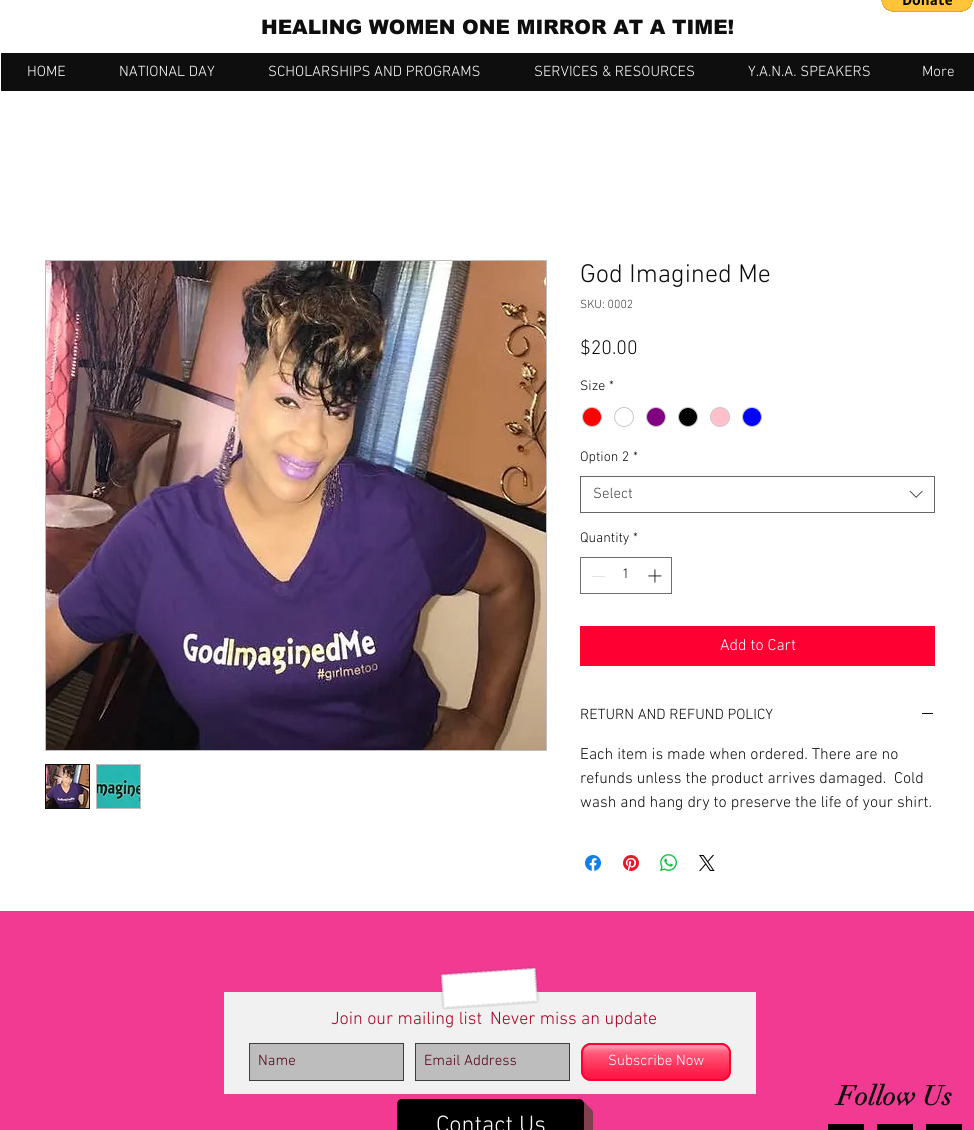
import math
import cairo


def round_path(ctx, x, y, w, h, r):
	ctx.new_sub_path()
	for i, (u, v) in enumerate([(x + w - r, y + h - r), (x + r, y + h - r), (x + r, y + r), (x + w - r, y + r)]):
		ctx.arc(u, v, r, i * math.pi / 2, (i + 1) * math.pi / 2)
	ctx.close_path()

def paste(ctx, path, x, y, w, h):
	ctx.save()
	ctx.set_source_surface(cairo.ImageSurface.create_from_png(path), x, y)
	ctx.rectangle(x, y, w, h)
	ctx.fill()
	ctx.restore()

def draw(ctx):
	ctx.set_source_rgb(1, 1, 1)
	ctx.paint()
	paste(ctx, 'media/1.png', 881, 0, 92, 12)
	ctx.select_font_face('arial Black')
	ctx.set_font_size(20)
	ctx.set_source_rgb(0.055, 0.055, 0.055)
	ctx.move_to(261, 34)
	ctx.show_text('HEALING WOMEN ONE MIRROR AT A TIME!')
	ctx.rectangle(1, 53, 973, 38)
	ctx.fill()
	ctx.select_font_face('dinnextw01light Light')
	ctx.set_font_size(15)
	ctx.set_source_rgb(1, 1, 1)
	for x, y, s in [
		(27, 76, 'HOME'),
		(119, 76, 'NATIONAL DAY'),
		(268, 76, 'SCHOLARSHIPS AND PROGRAMS'),
		(534, 76, 'SERVICES & RESOURCES'),
		(748, 76, 'Y.A.N.A. SPEAKERS'),
		(922, 76, 'More'),
	]:
		ctx.move_to(x, y)
		ctx.show_text(s)
	ctx.rectangle(45.5, 260.5, 501, 490)
	ctx.set_source_rgb(0.741, 0.741, 0.741)
	ctx.set_line_width(1)
	ctx.stroke()
	paste(ctx, 'media/2.png', 46, 261, 500, 489)
	ctx.rectangle(45.5, 764.5, 44, 44)
	ctx.set_source_rgb(0.055, 0.055, 0.055)
	ctx.stroke()
	paste(ctx, 'media/3.png', 46, 765, 43, 43)
	ctx.set_source_rgb(0.741, 0.741, 0.741)
	ctx.rectangle(96, 764, 45, 45)
	ctx.fill()
	paste(ctx, 'media/4.png', 97, 765, 43, 43)
	ctx.set_font_size(26)
	ctx.set_source_rgb(0.055, 0.055, 0.055)
	ctx.move_to(580, 282)
	ctx.show_text('God Imagined Me')
	ctx.set_font_size(12)
	ctx.set_source_rgb(0.243, 0.243, 0.243)
	ctx.move_to(580, 308)
	ctx.show_text('SKU: 0002')
	ctx.set_font_size(20)
	ctx.set_source_rgb(0.055, 0.055, 0.055)
	ctx.move_to(580, 354)
	ctx.show_text('$20.00')
	ctx.set_font_size(14)
	ctx.move_to(580, 390)
	ctx.show_text('Size')
	ctx.move_to(609, 390)
	ctx.show_text('*')
	ctx.set_source_rgb(1, 0, 0)
	ctx.new_path()
	ctx.arc(592, 417, 9.5, 0, 2 * math.pi)
	ctx.fill_preserve()
	ctx.set_source_rgb(0.788, 0.788, 0.788)
	ctx.stroke()
	ctx.arc(624, 417, 9.5, 0, 2 * math.pi)
	ctx.stroke()
	ctx.set_source_rgb(0.502, 0, 0.502)
	ctx.arc(656, 417, 9.5, 0, 2 * math.pi)
	ctx.fill_preserve()
	ctx.set_source_rgb(0.788, 0.788, 0.788)
	ctx.stroke()
	ctx.set_source_rgb(0, 0, 0)
	ctx.arc(688, 417, 9.5, 0, 2 * math.pi)
	ctx.fill_preserve()
	ctx.set_source_rgb(0.788, 0.788, 0.788)
	ctx.stroke()
	ctx.set_source_rgb(1, 0.753, 0.796)
	ctx.arc(720, 417, 9.5, 0, 2 * math.pi)
	ctx.fill_preserve()
	ctx.set_source_rgb(0.788, 0.788, 0.788)
	ctx.stroke()
	ctx.set_source_rgb(0, 0, 1)
	ctx.arc(752, 417, 9.5, 0, 2 * math.pi)
	ctx.fill_preserve()
	ctx.set_source_rgb(0.788, 0.788, 0.788)
	ctx.stroke()
	ctx.set_source_rgb(0.055, 0.055, 0.055)
	ctx.move_to(580, 461)
	ctx.show_text('Option 2')
	ctx.move_to(633, 461)
	ctx.show_text('*')
	ctx.rectangle(580.5, 476.5, 354, 36)
	ctx.set_source_rgb(0.4, 0.4, 0.4)
	ctx.stroke()
	ctx.set_font_size(15)
	ctx.set_source_rgb(0.267, 0.267, 0.267)
	ctx.move_to(593, 498)
	ctx.show_text('Select')
	paste(ctx, 'media/5.png', 909, 490, 14, 8)
	ctx.set_font_size(14)
	ctx.set_source_rgb(0.055, 0.055, 0.055)
	ctx.move_to(580, 542)
	ctx.show_text('Quantity')
	ctx.move_to(633, 542)
	ctx.show_text('*')
	ctx.rectangle(580.5, 557.5, 91, 36)
	ctx.set_source_rgb(0.431, 0.431, 0.431)
	ctx.stroke()
	ctx.set_source_rgb(0.89, 0.89, 0.89)
	ctx.rectangle(592, 576, 13, 1)
	ctx.fill()
	ctx.set_source_rgb(0.055, 0.055, 0.055)
	ctx.move_to(622, 578)
	ctx.show_text('1')
	paste(ctx, 'media/6.png', 648, 569, 14, 14)
	ctx.set_source_rgb(1, 0, 0.2)
	ctx.rectangle(580, 626, 355, 40)
	ctx.fill()
	ctx.set_font_size(16)
	ctx.set_source_rgb(1, 1, 1)
	ctx.move_to(720, 650)
	ctx.show_text('Add to Cart')
	ctx.set_font_size(15)
	ctx.set_source_rgb(0.055, 0.055, 0.055)
	ctx.move_to(580, 719)
	ctx.show_text('RETURN AND REFUND POLICY')
	ctx.rectangle(922, 713, 11, 1)
	ctx.fill()
	ctx.set_font_size(16)
	for x, y, s in [
		(580, 759, 'Each item is made when ordered. There are no'),
		(580, 783, 'refunds unless the product arrives damaged.  Cold'),
		(580, 807, 'wash and hang dry to preserve the life of your shirt.'),
	]:
		ctx.move_to(x, y)
		ctx.show_text(s)
	paste(ctx, 'media/7.png', 585, 855, 16, 16)
	paste(ctx, 'media/8.png', 623, 855, 16, 16)
	paste(ctx, 'media/9.png', 660, 854, 17, 17)
	paste(ctx, 'media/10.png', 699, 855, 16, 16)
	ctx.set_source_rgb(0.949, 0.227, 0.576)
	ctx.rectangle(0, 911, 974, 219)
	ctx.fill()
	ctx.set_source_rgb(0.945, 0.945, 0.945)
	ctx.rectangle(224, 992, 532, 102)
	ctx.fill()
	paste(ctx, 'media/11.png', 439, 966, 100, 44)
	ctx.set_font_size(18)
	ctx.set_source_rgb(0.667, 0, 0.133)
	ctx.move_to(331, 1024)
	ctx.show_text('Join our mailing list')
	ctx.move_to(490, 1024)
	ctx.show_text('Never miss an update')
	ctx.set_source_rgb(0.741, 0.741, 0.741)
	ctx.rectangle(249.5, 1043.5, 154, 37)
	ctx.fill_preserve()
	ctx.set_source_rgb(0.243, 0.243, 0.243)
	ctx.stroke()
	ctx.set_font_size(15)
	ctx.set_source_rgb(0.333, 0, 0.067)
	ctx.move_to(258, 1065)
	ctx.show_text('Name')
	ctx.set_source_rgb(0.741, 0.741, 0.741)
	ctx.rectangle(415.5, 1043.5, 154, 37)
	ctx.fill_preserve()
	ctx.set_source_rgb(0.243, 0.243, 0.243)
	ctx.stroke()
	ctx.set_source_rgb(0.333, 0, 0.067)
	ctx.move_to(424, 1065)
	ctx.show_text('Email Address')
	ctx.set_source_rgb(1, 0, 0.2)
	round_path(ctx, 581, 1043, 150, 38, 10)
	ctx.fill()
	paste(ctx, 'media/12.png', 581, 1045, 150, 36)
	round_path(ctx, 582, 1044, 148, 36, 9)
	ctx.set_line_width(2)
	ctx.stroke()
	ctx.set_source_rgb(1, 1, 1)
	ctx.move_to(608, 1065)
	ctx.show_text('Subscribe Now')
	ctx.select_font_face('didot', cairo.FONT_SLANT_NORMAL, cairo.FONT_WEIGHT_BOLD)
	ctx.set_font_size(27)
	ctx.set_source_rgb(0.055, 0.055, 0.055)
	ctx.move_to(837, 1105)
	ctx.show_text('Follow Us')
	ctx.set_source_rgb(0.502, 0.251, 0.302)
	ctx.new_path()
	ctx.move_to(406, 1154)
	ctx.line_to(406, 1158)
	ctx.curve_to(406, 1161, 408, 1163, 411, 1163)
	ctx.line_to(588, 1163)
	ctx.curve_to(591, 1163, 593, 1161, 593, 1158)
	ctx.line_to(593, 1113)
	ctx.curve_to(593, 1110, 591, 1108, 588, 1108)
	ctx.line_to(584, 1108)
	ctx.line_to(584, 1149)
	ctx.curve_to(584, 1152, 582, 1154, 579, 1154)
	ctx.close_path()
	ctx.fill()
	ctx.new_path()
	ctx.move_to(404, 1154)
	ctx.line_to(404, 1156)
	ctx.curve_to(404, 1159, 406, 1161, 409, 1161)
	ctx.line_to(586, 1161)
	ctx.curve_to(589, 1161, 591, 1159, 591, 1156)
	ctx.line_to(591, 1111)
	ctx.curve_to(591, 1108, 589, 1106, 586, 1106)
	ctx.line_to(584, 1106)
	ctx.line_to(584, 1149)
	ctx.curve_to(584, 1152, 582, 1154, 579, 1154)
	ctx.close_path()
	ctx.fill()
	ctx.new_path()
	ctx.move_to(402, 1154)
	ctx.curve_to(402, 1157, 404, 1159, 407, 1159)
	ctx.line_to(584, 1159)
	ctx.curve_to(587, 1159, 589, 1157, 589, 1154)
	ctx.line_to(589, 1109)
	ctx.curve_to(589, 1106, 587, 1104, 584, 1104)
	ctx.line_to(584, 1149)
	ctx.curve_to(584, 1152, 582, 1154, 579, 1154)
	ctx.close_path()
	ctx.fill()
	ctx.new_path()
	ctx.move_to(400, 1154)
	ctx.curve_to(401, 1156, 403, 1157, 405, 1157)
	ctx.line_to(582, 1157)
	ctx.curve_to(585, 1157, 587, 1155, 587, 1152)
	ctx.line_to(587, 1107)
	ctx.curve_to(587, 1105, 586, 1103, 584, 1102)
	ctx.line_to(584, 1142)
	ctx.curve_to(584, 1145, 585, 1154, 579, 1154)
	ctx.close_path()
	ctx.fill()
	ctx.new_path()
	ctx.move_to(399, 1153)
	ctx.curve_to(400, 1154, 401, 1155, 403, 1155)
	ctx.line_to(580, 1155)
	ctx.curve_to(583, 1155, 585, 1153, 585, 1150)
	ctx.line_to(585, 1105)
	ctx.curve_to(585, 1103, 584, 1102, 583, 1101)
	ctx.curve_to(584, 1102, 584, 1103, 584, 1104)
	ctx.line_to(584, 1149)
	ctx.curve_to(584, 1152, 582, 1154, 579, 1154)
	ctx.line_to(402, 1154)
	ctx.curve_to(401, 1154, 400, 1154, 399, 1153)
	ctx.close_path()
	ctx.fill()
	ctx.set_source_rgb(0, 0, 0)
	round_path(ctx, 397, 1099, 187, 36, 5)
	ctx.fill()
	ctx.select_font_face('dinnextw01light Light')
	ctx.set_font_size(24)
	ctx.set_source_rgb(1, 1, 1)
	ctx.move_to(436, 1132)
	ctx.show_text('Contact Us')
	ctx.set_source_rgb(0, 0, 0)
	ctx.rectangle(828, 1124, 36, 6)
	ctx.rectangle(877, 1124, 36, 6)
	ctx.rectangle(926, 1124, 36, 6)
	ctx.fill()


surface = cairo.ImageSurface(cairo.FORMAT_RGB24, 974, 1130)
ctx = cairo.Context(surface)
options = cairo.FontOptions()
options.set_hint_metrics(cairo.HINT_METRICS_OFF)
options.set_hint_style(cairo.HINT_STYLE_NONE)
ctx.set_font_options(options)
ctx.set_miter_limit(4)
draw(ctx)
surface.write_to_png('image.png')
